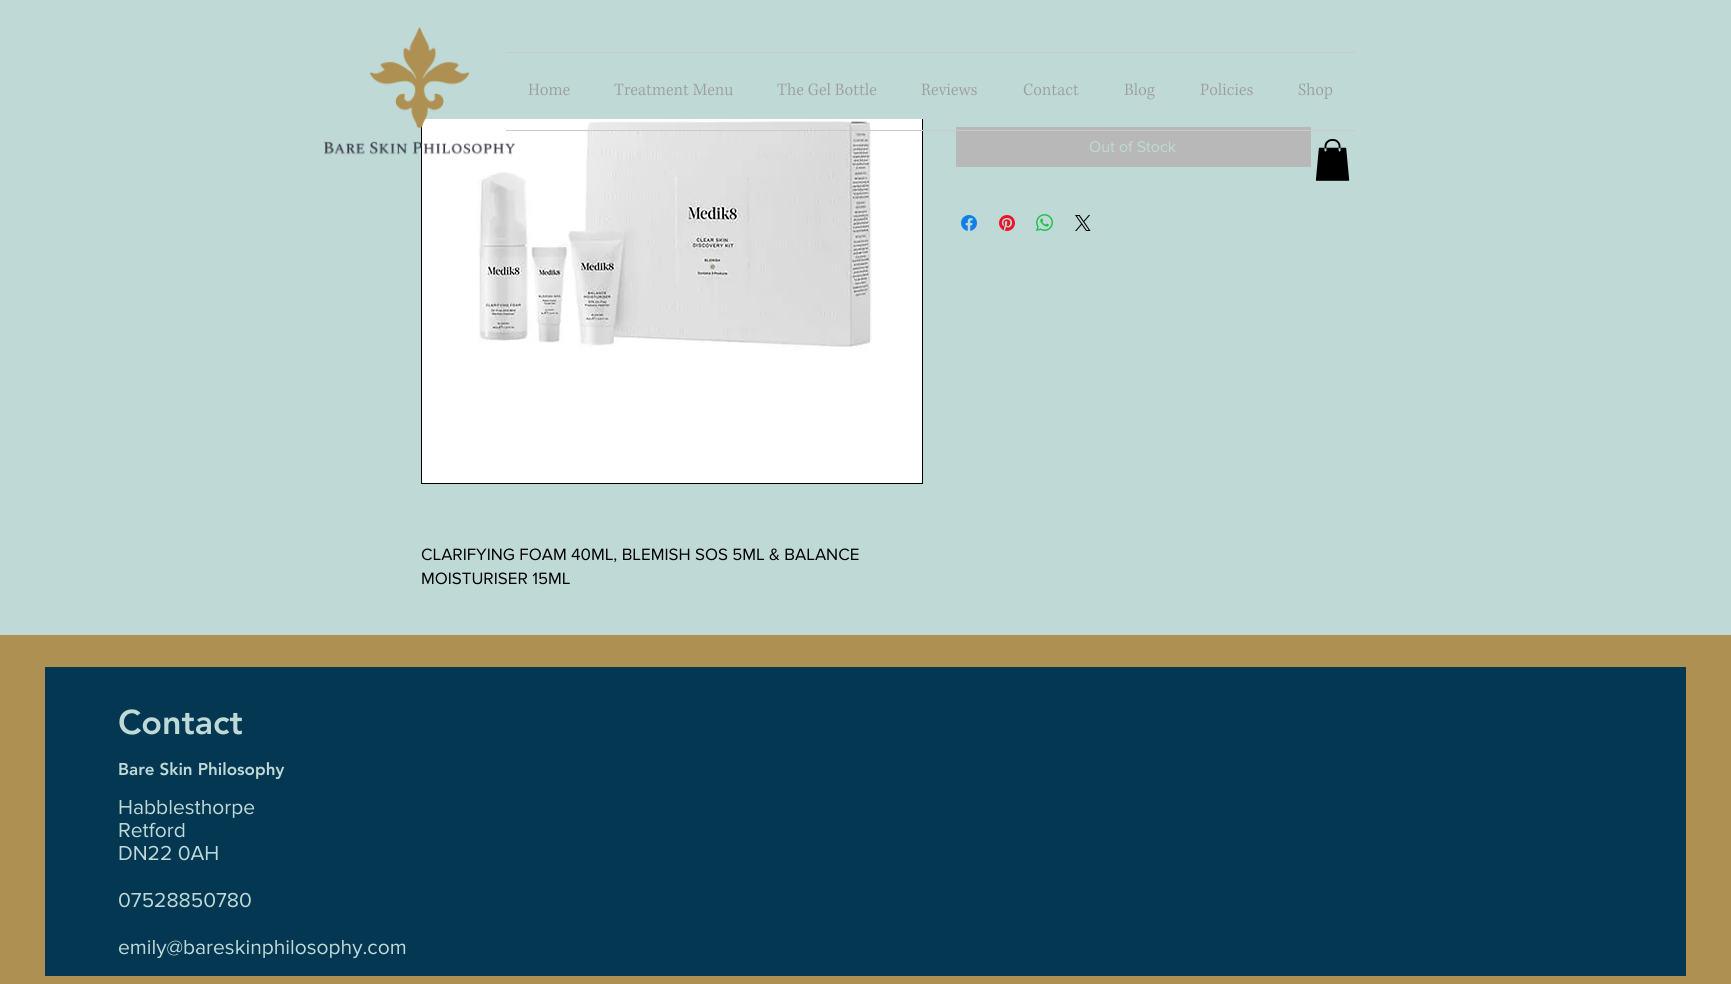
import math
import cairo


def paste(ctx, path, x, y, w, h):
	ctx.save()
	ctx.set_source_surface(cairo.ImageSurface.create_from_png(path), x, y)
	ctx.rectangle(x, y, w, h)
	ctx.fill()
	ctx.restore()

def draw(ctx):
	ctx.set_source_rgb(0.749, 0.851, 0.843)
	ctx.paint()
	ctx.rectangle(421.5, -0.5, 501, 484)
	ctx.set_source_rgb(0, 0, 0)
	ctx.set_line_width(1)
	ctx.stroke()
	ctx.set_source_rgb(0.749, 0.851, 0.843)
	ctx.rectangle(421, 0, 502, 119)
	ctx.fill()
	paste(ctx, 'media/15.png', 422, 119, 500, 364)
	paste(ctx, 'media/1.png', 324, 26, 191, 129)
	ctx.set_source_rgb(0.792, 0.792, 0.792)
	ctx.rectangle(506, 52, 850, 1)
	ctx.fill()
	ctx.set_source_rgb(0.722, 0.722, 0.722)
	ctx.rectangle(956, 127, 355, 40)
	ctx.fill()
	ctx.set_source_rgb(0.792, 0.792, 0.792)
	ctx.rectangle(506, 130, 850, 1)
	ctx.fill()
	paste(ctx, 'media/2.png', 528, 83, 42, 13)
	paste(ctx, 'media/3.png', 614, 83, 120, 13)
	paste(ctx, 'media/4.png', 777, 83, 100, 13)
	paste(ctx, 'media/5.png', 921, 83, 56, 13)
	paste(ctx, 'media/6.png', 1023, 83, 56, 13)
	paste(ctx, 'media/7.png', 1124, 83, 31, 17)
	paste(ctx, 'media/8.png', 1200, 83, 53, 13)
	paste(ctx, 'media/9.png', 1298, 83, 35, 16)
	paste(ctx, 'media/10.png', 1315, 139, 35, 42)
	ctx.select_font_face('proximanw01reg')
	ctx.set_font_size(16)
	ctx.set_source_rgb(0.749, 0.851, 0.843)
	ctx.move_to(1089, 152)
	ctx.show_text('Out of Stock')
	paste(ctx, 'media/11.png', 961, 215, 16, 16)
	paste(ctx, 'media/12.png', 999, 215, 16, 16)
	paste(ctx, 'media/13.png', 1036, 214, 17, 17)
	paste(ctx, 'media/14.png', 1075, 215, 16, 16)
	ctx.set_font_size(17)
	ctx.set_source_rgb(0, 0, 0)
	ctx.move_to(421, 560)
	ctx.show_text('CLARIFYING FOAM 40ML, BLEMISH SOS 5ML & BALANCE')
	ctx.move_to(421, 584)
	ctx.show_text('MOISTURISER 15ML')
	ctx.set_source_rgb(0.682, 0.569, 0.322)
	ctx.rectangle(0, 635, 1731, 349)
	ctx.fill()
	ctx.set_source_rgb(0.016, 0.216, 0.322)
	ctx.rectangle(45, 667, 1641, 309)
	ctx.fill()
	ctx.select_font_face('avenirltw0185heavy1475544 Black')
	ctx.set_font_size(34)
	ctx.set_source_rgb(0.749, 0.851, 0.843)
	ctx.move_to(118, 734)
	ctx.show_text('Contact')
	ctx.set_font_size(17)
	ctx.move_to(118, 775)
	ctx.show_text('Bare Skin Philosophy')
	ctx.select_font_face('proximanw01reg')
	ctx.set_font_size(21)
	for x, y, s in [
		(118, 814, 'Habblesthorpe'),
		(118, 837, 'Retford'),
		(118, 860, 'DN22 0AH'),
		(118, 907, '07528850780'),
		(118, 954, 'emily@bareskinphilosophy.com'),
	]:
		ctx.move_to(x, y)
		ctx.show_text(s)


surface = cairo.ImageSurface(cairo.FORMAT_RGB24, 1731, 984)
ctx = cairo.Context(surface)
options = cairo.FontOptions()
options.set_hint_metrics(cairo.HINT_METRICS_OFF)
options.set_hint_style(cairo.HINT_STYLE_NONE)
ctx.set_font_options(options)
ctx.set_miter_limit(4)
draw(ctx)
surface.write_to_png('image.png')
